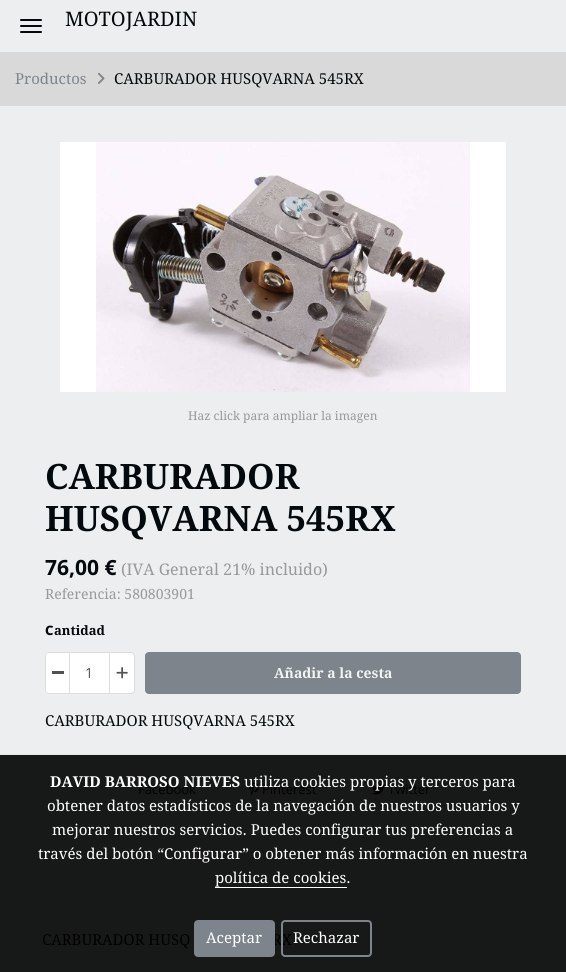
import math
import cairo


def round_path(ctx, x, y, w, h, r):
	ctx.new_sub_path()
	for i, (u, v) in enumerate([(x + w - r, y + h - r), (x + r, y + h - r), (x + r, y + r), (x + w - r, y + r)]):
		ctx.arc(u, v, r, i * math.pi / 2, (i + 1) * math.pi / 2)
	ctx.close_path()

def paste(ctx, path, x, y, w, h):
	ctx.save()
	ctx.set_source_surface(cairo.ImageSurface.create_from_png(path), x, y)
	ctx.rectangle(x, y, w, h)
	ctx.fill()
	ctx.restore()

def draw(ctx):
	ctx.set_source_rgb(0.922, 0.933, 0.941)
	ctx.paint()
	ctx.set_source_rgb(0.012, 0.039, 0.047)
	round_path(ctx, 20, 19, 22, 2, 1)
	ctx.fill()
	round_path(ctx, 20, 25, 22, 2, 1)
	ctx.fill()
	round_path(ctx, 20, 31, 22, 2, 1)
	ctx.fill()
	ctx.select_font_face('Droid Serif')
	ctx.set_font_size(20)
	ctx.move_to(65, 26)
	ctx.show_text('MOTOJARDIN')
	ctx.set_source_rgb(0.851, 0.851, 0.851)
	ctx.rectangle(0, 52, 566, 54)
	ctx.fill()
	ctx.set_font_size(15)
	ctx.set_source_rgb(0.49, 0.518, 0.549)
	ctx.move_to(15, 84)
	ctx.show_text('Productos')
	paste(ctx, 'media/1.png', 98, 72, 7, 12)
	ctx.set_source_rgb(0.012, 0.039, 0.047)
	ctx.move_to(114, 84)
	ctx.show_text('CARBURADOR HUSQVARNA 545RX')
	ctx.set_source_rgb(1, 1, 1)
	ctx.rectangle(60, 142, 446, 250)
	ctx.fill()
	paste(ctx, 'media/2.png', 96, 142, 374, 250)
	ctx.set_font_size(12)
	ctx.set_source_rgb(0.6, 0.6, 0.6)
	ctx.move_to(188, 420)
	ctx.show_text('Haz click para ampliar la imagen')
	ctx.select_font_face('Droid Serif', cairo.FONT_SLANT_NORMAL, cairo.FONT_WEIGHT_BOLD)
	ctx.set_font_size(35)
	ctx.set_source_rgb(0.012, 0.039, 0.047)
	ctx.move_to(45, 489)
	ctx.show_text('CARBURADOR')
	ctx.move_to(45, 531)
	ctx.show_text('HUSQVARNA 545RX')
	ctx.select_font_face('Open Sans', cairo.FONT_SLANT_NORMAL, cairo.FONT_WEIGHT_BOLD)
	ctx.set_font_size(21)
	ctx.move_to(45, 575)
	ctx.show_text('76,00 €')
	ctx.select_font_face('Droid Serif')
	ctx.set_font_size(16)
	ctx.set_source_rgb(0.6, 0.6, 0.6)
	ctx.move_to(121, 575)
	ctx.show_text('(IVA General 21% incluido)')
	ctx.set_font_size(14)
	ctx.move_to(45, 599)
	ctx.show_text('Referencia: 580803901')
	ctx.select_font_face('Noto Sans ExtraBold')
	ctx.set_font_size(13)
	ctx.set_source_rgb(0.012, 0.039, 0.047)
	ctx.move_to(45, 635)
	ctx.show_text('C')
	ctx.select_font_face('Droid Serif', cairo.FONT_SLANT_NORMAL, cairo.FONT_WEIGHT_BOLD)
	ctx.move_to(54, 635)
	ctx.show_text('antidad')
	ctx.set_source_rgb(1, 1, 1)
	ctx.new_path()
	ctx.move_to(49, 652)
	ctx.line_to(70, 652)
	ctx.line_to(70, 694)
	ctx.line_to(49, 694)
	ctx.curve_to(47, 694, 45, 692, 45, 690)
	ctx.line_to(45, 656)
	ctx.curve_to(45, 654, 47, 652, 49, 652)
	ctx.close_path()
	ctx.fill()
	ctx.set_source_rgb(0.867, 0.867, 0.867)
	ctx.set_fill_rule(cairo.FILL_RULE_EVEN_ODD)
	ctx.new_path()
	ctx.move_to(49, 652)
	ctx.line_to(70, 652)
	ctx.line_to(70, 694)
	ctx.line_to(49, 694)
	ctx.curve_to(47, 694, 45, 692, 45, 690)
	ctx.line_to(45, 656)
	ctx.curve_to(45, 654, 47, 652, 49, 652)
	ctx.close_path()
	ctx.move_to(49, 653)
	ctx.line_to(70, 653)
	ctx.line_to(70, 693)
	ctx.line_to(49, 693)
	ctx.curve_to(47, 693, 46, 692, 46, 690)
	ctx.line_to(46, 656)
	ctx.curve_to(46, 654, 47, 653, 49, 653)
	ctx.close_path()
	ctx.fill()
	ctx.set_source_rgb(0.322, 0.322, 0.322)
	ctx.rectangle(52, 671, 12, 3)
	ctx.fill()
	ctx.set_source_rgb(1, 1, 1)
	ctx.rectangle(69.5, 652.5, 40, 41)
	ctx.fill_preserve()
	ctx.set_source_rgb(0.867, 0.867, 0.867)
	ctx.set_line_width(1)
	ctx.stroke()
	ctx.select_font_face('Open Sans')
	ctx.set_font_size(14)
	ctx.set_source_rgb(0.333, 0.333, 0.333)
	ctx.move_to(85, 678)
	ctx.show_text('1')
	ctx.set_source_rgb(1, 1, 1)
	ctx.new_path()
	ctx.move_to(109.5, 652.5)
	ctx.line_to(131, 652.5)
	ctx.curve_to(133, 652.5, 134.5, 654, 134.5, 656)
	ctx.line_to(134.5, 690)
	ctx.curve_to(134.5, 692, 133, 693.5, 131, 693.5)
	ctx.line_to(109.5, 693.5)
	ctx.close_path()
	ctx.fill_preserve()
	ctx.set_source_rgb(0.867, 0.867, 0.867)
	ctx.stroke()
	paste(ctx, 'media/3.png', 116, 667, 12, 12)
	ctx.set_source_rgb(0.49, 0.518, 0.549)
	round_path(ctx, 145.5, 652.5, 375, 41, 3.5)
	ctx.fill_preserve()
	ctx.stroke()
	ctx.select_font_face('Droid Serif', cairo.FONT_SLANT_NORMAL, cairo.FONT_WEIGHT_BOLD)
	ctx.set_source_rgb(0.949, 0.953, 0.957)
	ctx.move_to(274, 678)
	ctx.show_text('Añadir a la cesta')
	ctx.select_font_face('Droid Serif')
	ctx.set_font_size(15)
	ctx.set_source_rgb(0.012, 0.039, 0.047)
	ctx.move_to(45, 726)
	ctx.show_text('CARBURADOR HUSQVARNA 545RX')
	ctx.set_source_rgb(0.09, 0.094, 0.094)
	ctx.rectangle(0, 755, 566, 217)
	ctx.fill()
	ctx.select_font_face('Open Sans')
	ctx.set_font_size(13)
	ctx.set_source_rgb(0, 0, 0)
	ctx.move_to(138, 794)
	ctx.show_text('Facebook')
	paste(ctx, 'media/4.png', 249, 782, 10, 14)
	ctx.move_to(262, 794)
	ctx.show_text('Pinterest')
	paste(ctx, 'media/5.png', 372, 783, 13, 12)
	ctx.move_to(388, 794)
	ctx.show_text('Twitter')
	ctx.select_font_face('Droid Serif')
	ctx.set_font_size(15)
	ctx.move_to(42, 945)
	ctx.show_text('CARBURADOR HUSQ')
	ctx.move_to(272, 945)
	ctx.show_text('RX')
	ctx.set_source_rgb(0.906, 0.906, 0.906)
	ctx.rectangle(0, 754, 566, 1)
	ctx.fill()
	ctx.select_font_face('Droid Serif', cairo.FONT_SLANT_NORMAL, cairo.FONT_WEIGHT_BOLD)
	ctx.set_source_rgb(1, 1, 1)
	ctx.move_to(50, 787)
	ctx.show_text('DAVID BARROSO NIEVES')
	ctx.select_font_face('Droid Serif')
	for x, y, s in [
		(244, 787, 'utiliza cookies propias y terceros para'),
		(47, 811, 'obtener datos estadísticos de la navegación de nuestros usuarios y'),
		(52, 835, 'mejorar nuestros servicios. Puedes configurar tus preferencias a'),
		(38, 859, 'través del botón “Configurar” o obtener más información en nuestra'),
		(215, 883, 'política de cookies.'),
	]:
		ctx.move_to(x, y)
		ctx.show_text(s)
	ctx.rectangle(215, 887, 132, 1)
	ctx.fill()
	ctx.set_source_rgb(0.49, 0.518, 0.549)
	round_path(ctx, 195, 921, 79, 35, 3)
	ctx.fill_preserve()
	ctx.set_line_width(2)
	ctx.stroke()
	ctx.set_source_rgb(1, 1, 1)
	ctx.move_to(206, 943)
	ctx.show_text('Aceptar')
	round_path(ctx, 282, 921, 89, 35, 3)
	ctx.set_source_rgb(0.49, 0.518, 0.549)
	ctx.stroke()
	ctx.set_source_rgb(1, 1, 1)
	ctx.move_to(293, 943)
	ctx.show_text('Rechazar')


surface = cairo.ImageSurface(cairo.FORMAT_RGB24, 566, 972)
ctx = cairo.Context(surface)
options = cairo.FontOptions()
options.set_hint_metrics(cairo.HINT_METRICS_OFF)
options.set_hint_style(cairo.HINT_STYLE_NONE)
ctx.set_font_options(options)
ctx.set_miter_limit(4)
draw(ctx)
surface.write_to_png('image.png')
